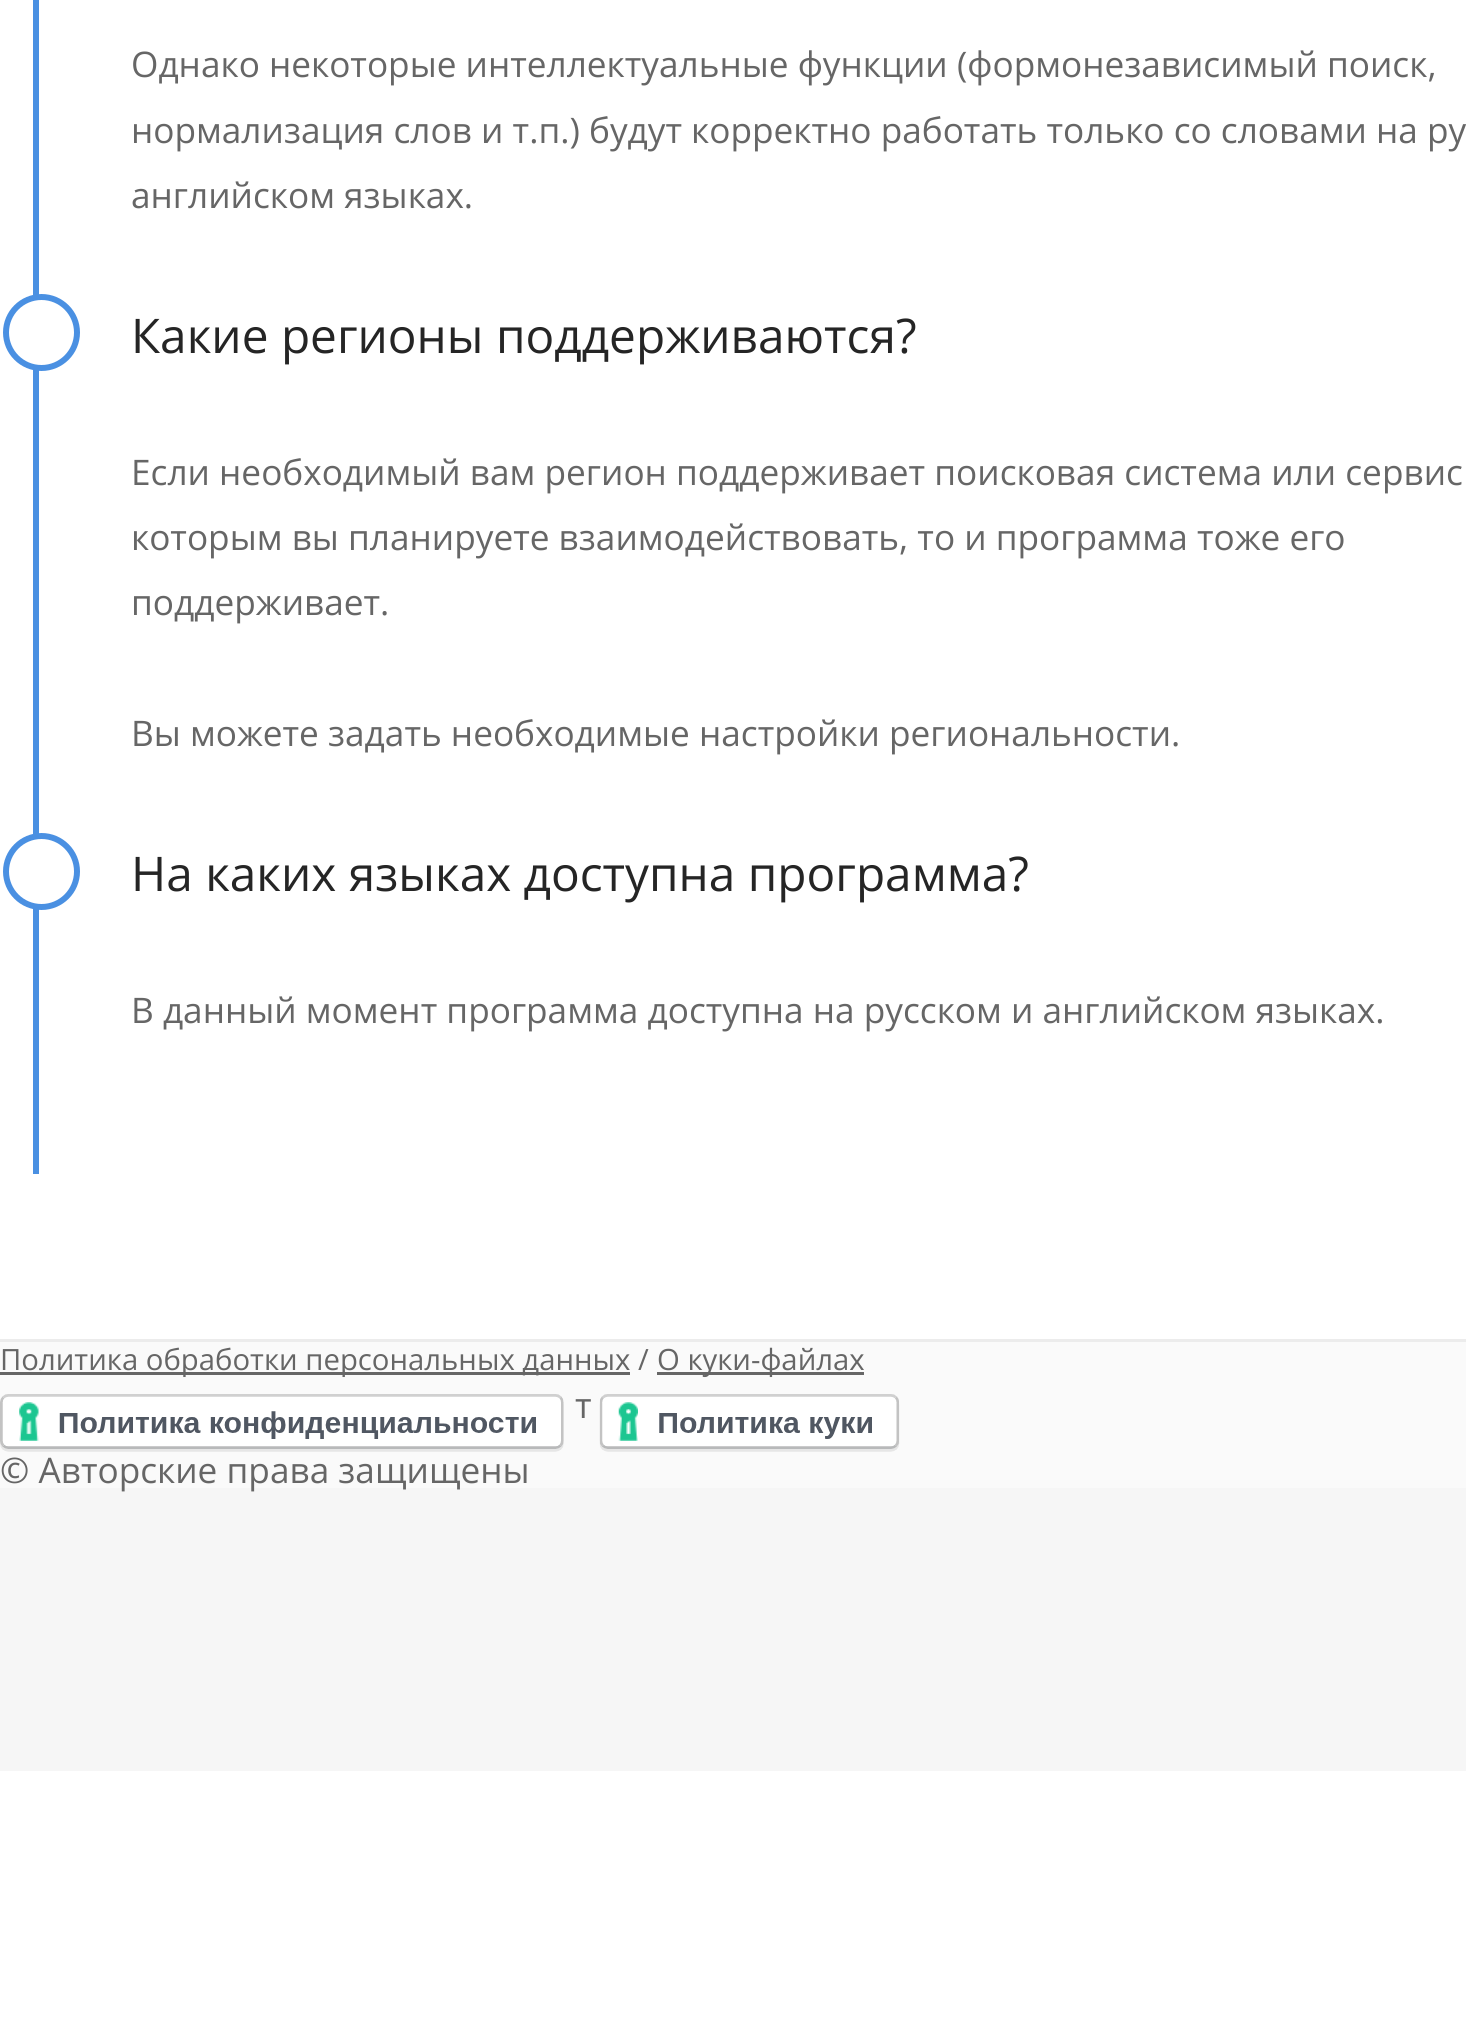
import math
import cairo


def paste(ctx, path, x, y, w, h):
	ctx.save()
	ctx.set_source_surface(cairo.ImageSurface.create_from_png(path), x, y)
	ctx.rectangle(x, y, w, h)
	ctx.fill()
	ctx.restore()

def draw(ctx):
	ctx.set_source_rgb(1, 1, 1)
	ctx.paint()
	ctx.set_source_rgb(0.29, 0.565, 0.886)
	ctx.rectangle(33, 0, 6, 1174)
	ctx.fill()
	ctx.select_font_face('Open Sans')
	ctx.set_font_size(35.2)
	ctx.set_source_rgb(0.4, 0.4, 0.4)
	for x, y, s in [
		(131, 77, 'Однако некоторые интеллектуальные функции (формонезависимый поиск,'),
		(131, 143, 'нормализация слов и т.п.) будут корректно работать только со словами на ру'),
		(131, 208, 'английском языках.'),
	]:
		ctx.move_to(x, y)
		ctx.show_text(s)
	ctx.set_source_rgb(1, 1, 1)
	ctx.new_path()
	ctx.arc(41.5, 332.5, 35.5, 0, 2 * math.pi)
	ctx.fill_preserve()
	ctx.set_source_rgb(0.29, 0.565, 0.886)
	ctx.set_line_width(6)
	ctx.stroke()
	ctx.set_font_size(47.75)
	ctx.set_source_rgb(0.145, 0.145, 0.145)
	ctx.move_to(131, 353)
	ctx.show_text('Какие регионы поддерживаются?')
	ctx.set_font_size(35.2)
	ctx.set_source_rgb(0.4, 0.4, 0.4)
	for x, y, s in [
		(131, 485, 'Если необходимый вам регион поддерживает поисковая система или сервис'),
		(131, 550, 'которым вы планируете взаимодействовать, то и программа тоже его'),
		(131, 615, 'поддерживает.'),
		(131, 746, 'Вы можете задать необходимые настройки региональности.'),
	]:
		ctx.move_to(x, y)
		ctx.show_text(s)
	ctx.set_source_rgb(1, 1, 1)
	ctx.new_path()
	ctx.arc(41.5, 871.5, 35.5, 0, 2 * math.pi)
	ctx.fill_preserve()
	ctx.set_source_rgb(0.29, 0.565, 0.886)
	ctx.stroke()
	ctx.set_font_size(47.75)
	ctx.set_source_rgb(0.145, 0.145, 0.145)
	ctx.move_to(131, 891)
	ctx.show_text('На каких языках доступна программа?')
	ctx.set_font_size(35.2)
	ctx.set_source_rgb(0.4, 0.4, 0.4)
	ctx.move_to(131, 1023)
	ctx.show_text('В данный момент программа доступна на русском и английском языках.')
	ctx.set_source_rgb(0.98, 0.98, 0.98)
	ctx.rectangle(0, 1342, 1466, 146)
	ctx.fill()
	ctx.set_source_rgb(0.922, 0.922, 0.922)
	ctx.rectangle(0, 1339, 1466, 3)
	ctx.fill()
	ctx.set_source_rgb(0.4, 0.4, 0.4)
	ctx.rectangle(0, 1372, 630, 3)
	ctx.fill()
	ctx.set_font_size(29.3)
	ctx.move_to(0, 1370)
	ctx.show_text('Политика обработки персональных данных')
	ctx.move_to(638, 1370)
	ctx.show_text('/')
	ctx.rectangle(657, 1372, 207, 3)
	ctx.fill()
	ctx.move_to(657, 1370)
	ctx.show_text('О куки-файлах')
	paste(ctx, 'media/1.png', 0, 1394, 564, 58)
	paste(ctx, 'media/2.png', 599, 1394, 301, 58)
	ctx.set_font_size(35.2)
	ctx.move_to(575, 1418)
	ctx.show_text('т')
	ctx.set_source_rgb(0.961, 0.961, 0.961)
	ctx.rectangle(0, 1488, 1466, 283)
	ctx.fill()
	ctx.set_source_rgb(0.4, 0.4, 0.4)
	ctx.move_to(0, 1483)
	ctx.show_text('© Авторские права защищены')


surface = cairo.ImageSurface(cairo.FORMAT_RGB24, 1466, 2020)
ctx = cairo.Context(surface)
options = cairo.FontOptions()
options.set_hint_metrics(cairo.HINT_METRICS_OFF)
options.set_hint_style(cairo.HINT_STYLE_NONE)
ctx.set_font_options(options)
ctx.set_miter_limit(4)
draw(ctx)
surface.write_to_png('image.png')
